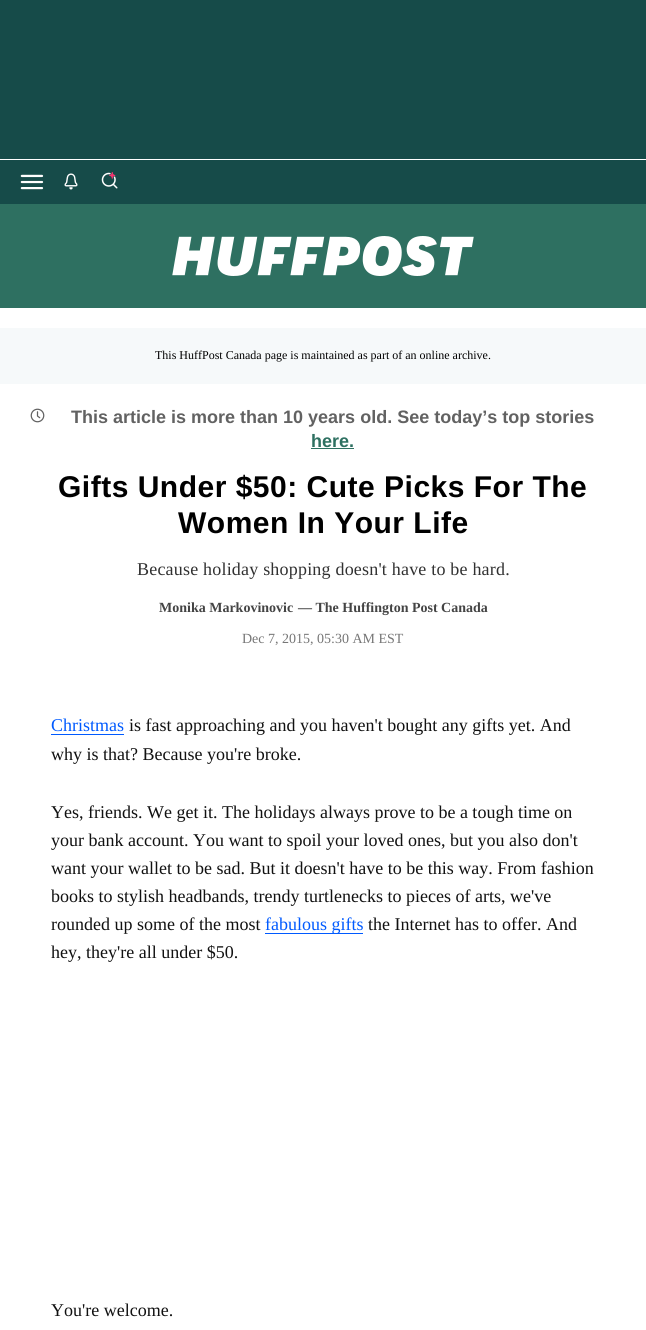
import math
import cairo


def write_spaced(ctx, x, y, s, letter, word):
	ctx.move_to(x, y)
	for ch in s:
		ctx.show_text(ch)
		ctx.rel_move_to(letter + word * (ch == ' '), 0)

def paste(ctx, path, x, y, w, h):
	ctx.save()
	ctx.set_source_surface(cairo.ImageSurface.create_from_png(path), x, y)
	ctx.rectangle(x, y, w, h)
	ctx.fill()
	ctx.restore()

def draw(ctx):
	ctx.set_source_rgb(1, 1, 1)
	ctx.paint()
	ctx.set_source_rgb(0.086, 0.294, 0.286)
	ctx.rectangle(0, 0, 646, 159)
	ctx.fill()
	ctx.rectangle(0, 160, 646, 44)
	ctx.fill()
	paste(ctx, 'media/1.png', 20, 174, 24, 16)
	paste(ctx, 'media/2.png', 64, 173, 14, 17)
	paste(ctx, 'media/3.png', 101, 172, 17, 17)
	ctx.set_source_rgb(0.18, 0.439, 0.38)
	ctx.rectangle(0, 204, 646, 104)
	ctx.fill()
	paste(ctx, 'media/4.png', 172, 236, 302, 40)
	ctx.set_source_rgb(0.961, 0.973, 0.98)
	ctx.rectangle(0, 328, 646, 56)
	ctx.fill()
	ctx.select_font_face('Liberation Serif')
	ctx.set_font_size(12)
	ctx.set_source_rgb(0, 0, 0)
	ctx.move_to(155, 359)
	ctx.show_text('This HuffPost Canada page is maintained as part of an online archive.')
	paste(ctx, 'media/5.png', 30, 408, 15, 15)
	ctx.select_font_face('Liberation Sans', cairo.FONT_SLANT_NORMAL, cairo.FONT_WEIGHT_BOLD)
	ctx.set_font_size(18)
	ctx.set_source_rgb(0.384, 0.384, 0.384)
	ctx.move_to(71, 423)
	ctx.show_text('This article is more than 10 years old. See today’s top stories')
	ctx.set_source_rgb(0.18, 0.439, 0.38)
	ctx.move_to(311, 447)
	ctx.show_text('here.')
	ctx.rectangle(311, 448, 43, 1)
	ctx.fill()
	ctx.set_font_size(30)
	ctx.set_source_rgb(0, 0, 0)
	write_spaced(ctx, 58, 497, 'Gifts Under $50: Cute Picks For The', 0.5, 0)
	write_spaced(ctx, 178, 533, 'Women In Your Life', 0.5, 0)
	ctx.select_font_face('Liberation Serif')
	ctx.set_font_size(18)
	ctx.set_source_rgb(0.192, 0.192, 0.192)
	write_spaced(ctx, 137, 575, 'Because holiday shopping doesn\'t have to be hard.', 0.2, 0)
	ctx.select_font_face('Liberation Serif', cairo.FONT_SLANT_NORMAL, cairo.FONT_WEIGHT_BOLD)
	ctx.set_font_size(14)
	ctx.set_source_rgb(0.267, 0.267, 0.267)
	ctx.move_to(159, 612)
	ctx.show_text('Monika Markovinovic')
	ctx.move_to(298, 612)
	ctx.show_text('— The Huffington Post Canada')
	ctx.select_font_face('Liberation Serif')
	ctx.set_source_rgb(0.463, 0.463, 0.463)
	ctx.move_to(242, 643)
	ctx.show_text('Dec 7, 2015, 05:30 AM EST')
	ctx.set_font_size(18)
	ctx.set_source_rgb(0, 0.353, 1)
	ctx.move_to(51, 731)
	ctx.show_text('Christmas')
	ctx.rectangle(51, 734, 73, 1)
	ctx.fill()
	ctx.set_source_rgb(0.067, 0.067, 0.067)
	for x, y, s in [
		(129, 731, 'is fast approaching and you haven\'t bought any gifts yet. And'),
		(51, 760, 'why is that? Because you\'re broke.'),
		(51, 818, 'Yes, friends. We get it. The holidays always prove to be a tough time on'),
		(51, 846, 'your bank account. You want to spoil your loved ones, but you also don\'t'),
		(51, 874, 'want your wallet to be sad. But it doesn\'t have to be this way. From fashion'),
		(51, 902, 'books to stylish headbands, trendy turtlenecks to pieces of arts, we\'ve'),
		(51, 930, 'rounded up some of the most'),
	]:
		ctx.move_to(x, y)
		ctx.show_text(s)
	ctx.set_source_rgb(0, 0.353, 1)
	ctx.rectangle(265, 933, 98, 1)
	ctx.fill()
	ctx.move_to(265, 930)
	ctx.show_text('fabulous gifts')
	ctx.set_source_rgb(0.067, 0.067, 0.067)
	for x, y, s in [
		(368, 930, 'the Internet has to offer. And'),
		(51, 958, 'hey, they\'re all under $50.'),
		(51, 1316, 'You\'re welcome.'),
	]:
		ctx.move_to(x, y)
		ctx.show_text(s)


surface = cairo.ImageSurface(cairo.FORMAT_RGB24, 646, 1330)
ctx = cairo.Context(surface)
options = cairo.FontOptions()
options.set_hint_metrics(cairo.HINT_METRICS_OFF)
options.set_hint_style(cairo.HINT_STYLE_NONE)
ctx.set_font_options(options)
ctx.set_miter_limit(4)
draw(ctx)
surface.write_to_png('image.png')
